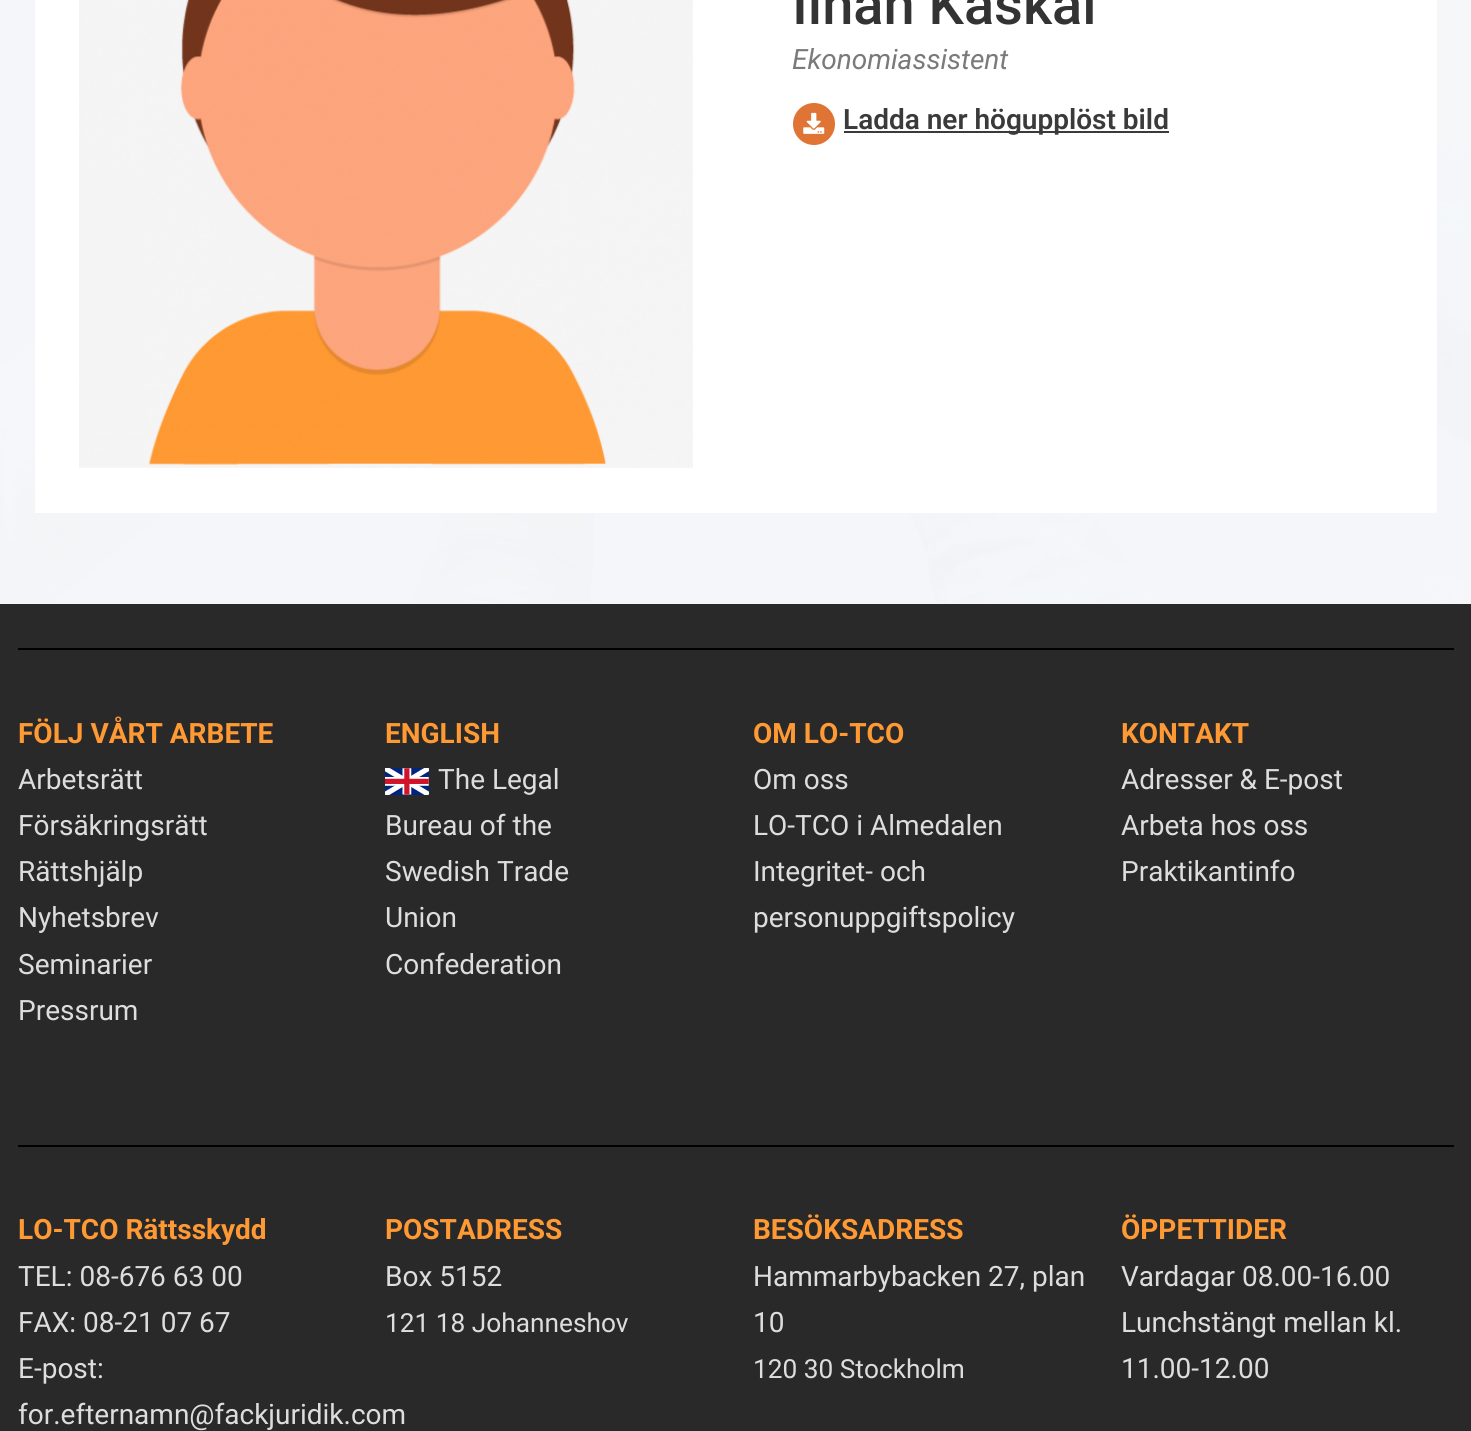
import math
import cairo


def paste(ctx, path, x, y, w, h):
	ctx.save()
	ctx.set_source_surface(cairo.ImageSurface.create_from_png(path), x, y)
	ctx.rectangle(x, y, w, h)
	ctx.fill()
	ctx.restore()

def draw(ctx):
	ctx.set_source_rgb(0.961, 0.969, 0.98)
	ctx.paint()
	paste(ctx, 'media/1.png', 0, 0, 1471, 604)
	ctx.set_source_rgb(1, 1, 1)
	ctx.rectangle(35, 0, 1402, 513)
	ctx.fill()
	paste(ctx, 'media/2.png', 79, 0, 614, 468)
	ctx.select_font_face('Roboto Medium')
	ctx.set_font_size(56)
	ctx.set_source_rgb(0.2, 0.2, 0.2)
	ctx.move_to(792, 24)
	ctx.show_text('Ilhan Kaskal')
	ctx.select_font_face('Roboto', cairo.FONT_SLANT_ITALIC)
	ctx.set_font_size(28)
	ctx.set_source_rgb(0.478, 0.478, 0.478)
	ctx.move_to(792, 69)
	ctx.show_text('Ekonomiassistent')
	ctx.set_source_rgb(0.878, 0.455, 0.204)
	ctx.new_path()
	ctx.arc(814, 124, 21, 0, 2 * math.pi)
	ctx.fill()
	paste(ctx, 'media/3.png', 803, 112, 22, 22)
	ctx.set_source_rgb(0.227, 0.227, 0.227)
	ctx.rectangle(844, 131, 325, 2)
	ctx.fill()
	ctx.select_font_face('Roboto SemiBold')
	ctx.move_to(843, 129)
	ctx.show_text('Ladda ner högupplöst bild')
	ctx.set_source_rgb(0.161, 0.161, 0.161)
	ctx.rectangle(0, 604, 1471, 827)
	ctx.fill()
	ctx.set_source_rgb(0, 0, 0)
	ctx.rectangle(18, 648, 1436, 2)
	ctx.fill()
	ctx.select_font_face('Roboto', cairo.FONT_SLANT_NORMAL, cairo.FONT_WEIGHT_BOLD)
	ctx.set_source_rgb(1, 0.6, 0.2)
	ctx.move_to(18, 743)
	ctx.show_text('FÖLJ VÅRT ARBETE')
	ctx.select_font_face('Roboto')
	ctx.set_source_rgb(0.867, 0.867, 0.867)
	for x, y, s in [
		(18, 789, 'Arbetsrätt'),
		(18, 835, 'Försäkringsrätt'),
		(18, 881, 'Rättshjälp'),
		(18, 927, 'Nyhetsbrev'),
		(18, 974, 'Seminarier'),
		(18, 1020, 'Pressrum'),
	]:
		ctx.move_to(x, y)
		ctx.show_text(s)
	ctx.select_font_face('Roboto', cairo.FONT_SLANT_NORMAL, cairo.FONT_WEIGHT_BOLD)
	ctx.set_source_rgb(1, 0.6, 0.2)
	ctx.move_to(385, 743)
	ctx.show_text('ENGLISH')
	paste(ctx, 'media/4.png', 385, 768, 44, 27)
	ctx.select_font_face('Roboto')
	ctx.set_source_rgb(0.867, 0.867, 0.867)
	for x, y, s in [
		(438, 789, 'The Legal'),
		(385, 835, 'Bureau of the'),
		(385, 881, 'Swedish Trade'),
		(385, 927, 'Union'),
		(385, 974, 'Confederation'),
	]:
		ctx.move_to(x, y)
		ctx.show_text(s)
	ctx.select_font_face('Roboto', cairo.FONT_SLANT_NORMAL, cairo.FONT_WEIGHT_BOLD)
	ctx.set_source_rgb(1, 0.6, 0.2)
	ctx.move_to(753, 743)
	ctx.show_text('OM LO-TCO')
	ctx.select_font_face('Roboto')
	ctx.set_source_rgb(0.867, 0.867, 0.867)
	for x, y, s in [
		(753, 789, 'Om oss'),
		(753, 835, 'LO-TCO i Almedalen'),
		(753, 881, 'Integritet- och'),
		(753, 927, 'personuppgiftspolicy'),
	]:
		ctx.move_to(x, y)
		ctx.show_text(s)
	ctx.select_font_face('Roboto', cairo.FONT_SLANT_NORMAL, cairo.FONT_WEIGHT_BOLD)
	ctx.set_source_rgb(1, 0.6, 0.2)
	ctx.move_to(1121, 743)
	ctx.show_text('KONTAKT')
	ctx.select_font_face('Roboto')
	ctx.set_source_rgb(0.867, 0.867, 0.867)
	for x, y, s in [
		(1121, 789, 'Adresser & E-post'),
		(1121, 835, 'Arbeta hos oss'),
		(1121, 881, 'Praktikantinfo'),
	]:
		ctx.move_to(x, y)
		ctx.show_text(s)
	ctx.set_source_rgb(0, 0, 0)
	ctx.rectangle(18, 1145, 1436, 2)
	ctx.fill()
	ctx.select_font_face('Roboto', cairo.FONT_SLANT_NORMAL, cairo.FONT_WEIGHT_BOLD)
	ctx.set_source_rgb(1, 0.6, 0.2)
	ctx.move_to(18, 1239)
	ctx.show_text('LO-TCO Rättsskydd')
	ctx.select_font_face('Roboto')
	ctx.set_source_rgb(0.867, 0.867, 0.867)
	for x, y, s in [
		(18, 1286, 'TEL: 08-676 63 00'),
		(18, 1332, 'FAX: 08-21 07 67'),
		(18, 1378, 'E-post:'),
		(18, 1424, 'for.efternamn@fackjuridik.com'),
	]:
		ctx.move_to(x, y)
		ctx.show_text(s)
	ctx.select_font_face('Roboto', cairo.FONT_SLANT_NORMAL, cairo.FONT_WEIGHT_BOLD)
	ctx.set_source_rgb(1, 0.6, 0.2)
	ctx.move_to(385, 1239)
	ctx.show_text('POSTADRESS')
	ctx.select_font_face('Roboto')
	ctx.set_source_rgb(0.867, 0.867, 0.867)
	ctx.move_to(385, 1286)
	ctx.show_text('Box 5152')
	ctx.set_font_size(26.25)
	ctx.move_to(385, 1332)
	ctx.show_text('121 18 Johanneshov')
	ctx.select_font_face('Roboto', cairo.FONT_SLANT_NORMAL, cairo.FONT_WEIGHT_BOLD)
	ctx.set_font_size(28)
	ctx.set_source_rgb(1, 0.6, 0.2)
	ctx.move_to(753, 1239)
	ctx.show_text('BESÖKSADRESS')
	ctx.select_font_face('Roboto')
	ctx.set_source_rgb(0.867, 0.867, 0.867)
	ctx.move_to(753, 1286)
	ctx.show_text('Hammarbybacken 27, plan')
	ctx.move_to(753, 1332)
	ctx.show_text('10')
	ctx.set_font_size(26.25)
	ctx.move_to(753, 1378)
	ctx.show_text('120 30 Stockholm')
	ctx.select_font_face('Roboto', cairo.FONT_SLANT_NORMAL, cairo.FONT_WEIGHT_BOLD)
	ctx.set_font_size(28)
	ctx.set_source_rgb(1, 0.6, 0.2)
	ctx.move_to(1121, 1239)
	ctx.show_text('ÖPPETTIDER')
	ctx.select_font_face('Roboto')
	ctx.set_source_rgb(0.867, 0.867, 0.867)
	for x, y, s in [
		(1121, 1286, 'Vardagar 08.00-16.00'),
		(1121, 1332, 'Lunchstängt mellan kl.'),
		(1121, 1378, '11.00-12.00'),
	]:
		ctx.move_to(x, y)
		ctx.show_text(s)


surface = cairo.ImageSurface(cairo.FORMAT_RGB24, 1471, 1431)
ctx = cairo.Context(surface)
options = cairo.FontOptions()
options.set_hint_metrics(cairo.HINT_METRICS_OFF)
options.set_hint_style(cairo.HINT_STYLE_NONE)
ctx.set_font_options(options)
ctx.set_miter_limit(4)
draw(ctx)
surface.write_to_png('image.png')
